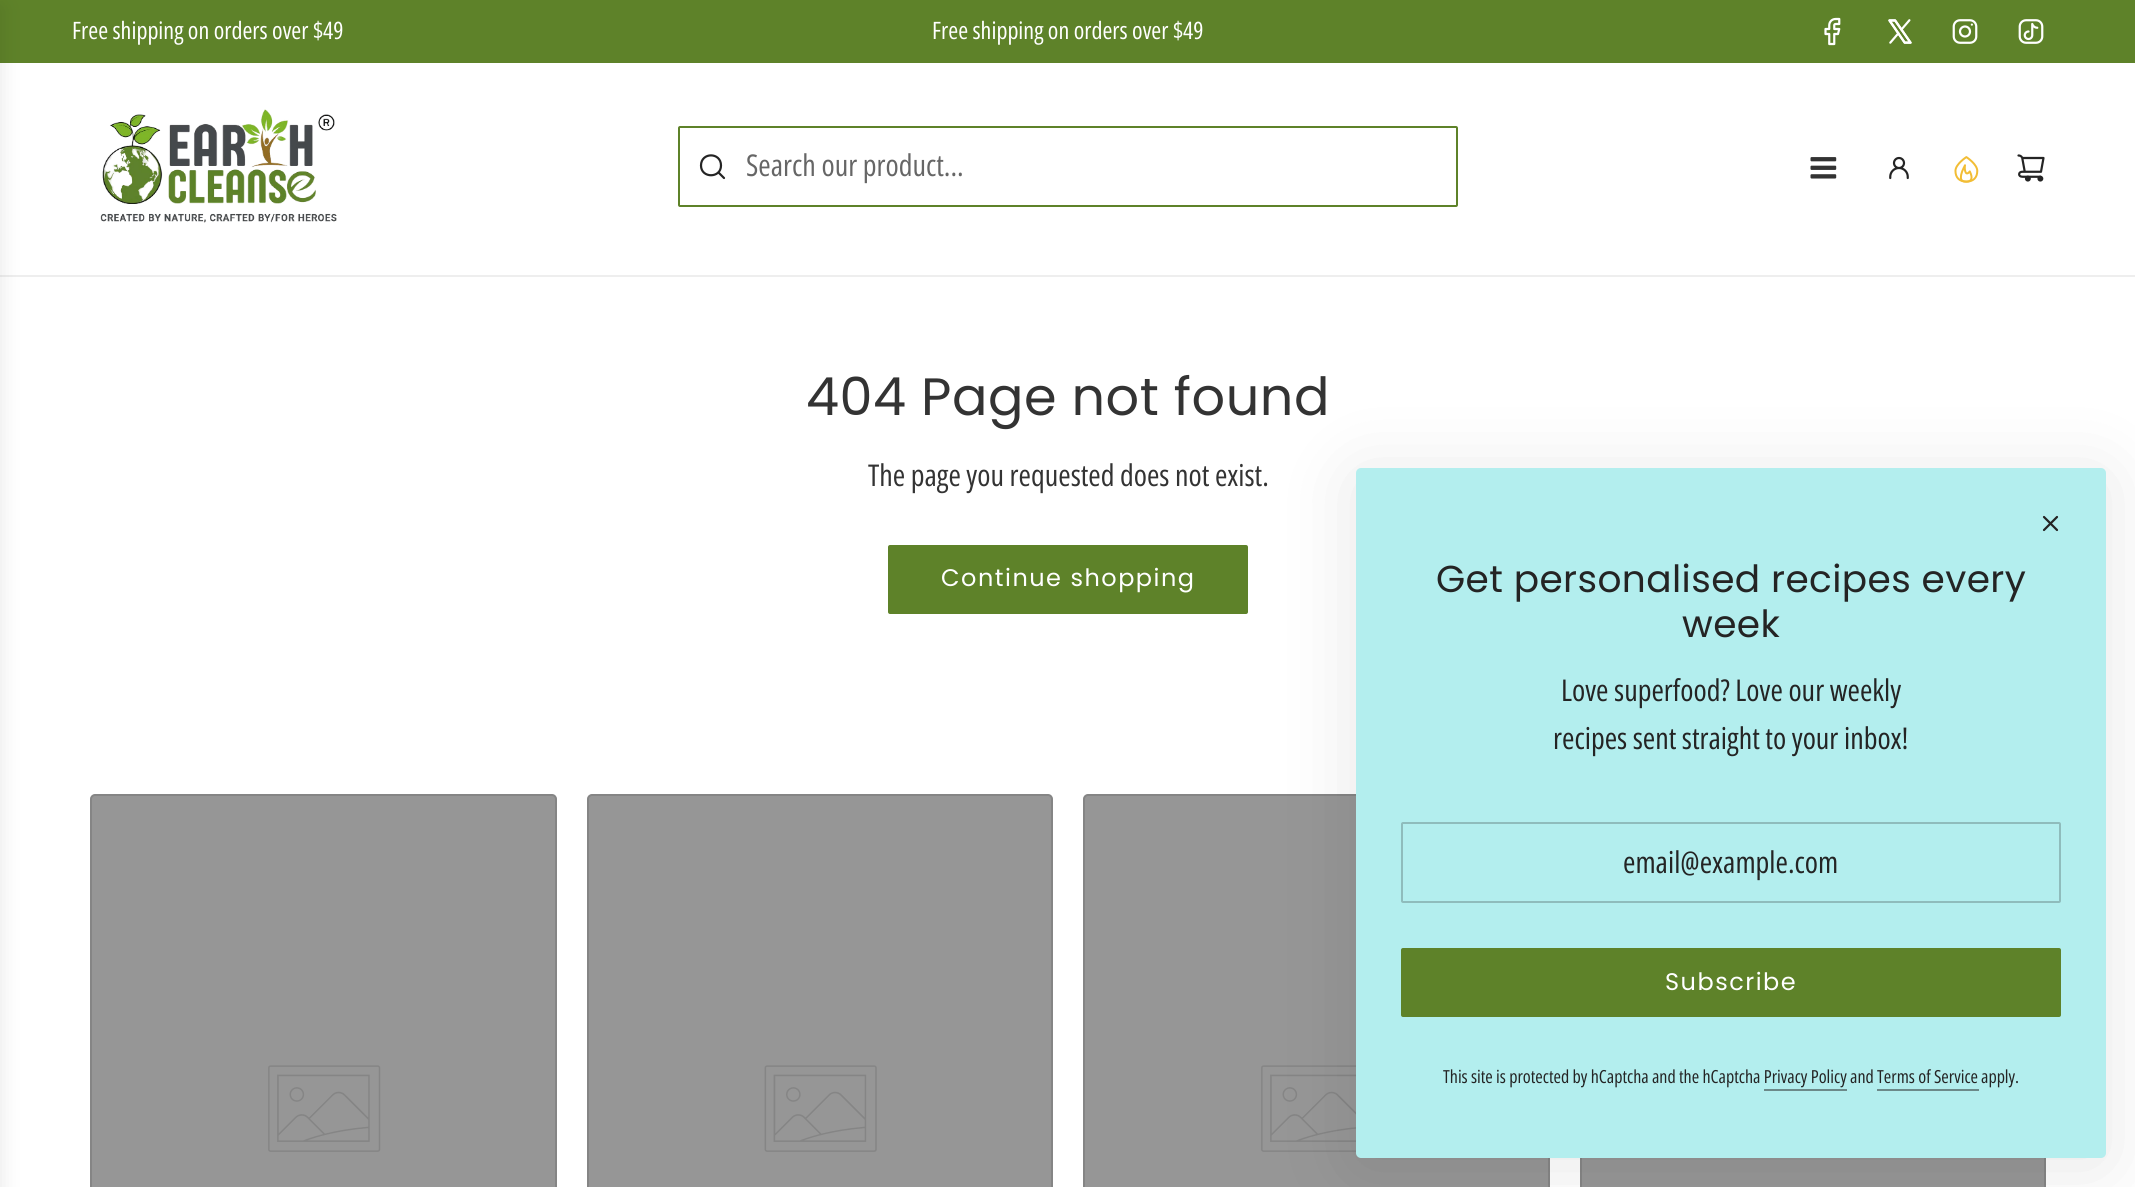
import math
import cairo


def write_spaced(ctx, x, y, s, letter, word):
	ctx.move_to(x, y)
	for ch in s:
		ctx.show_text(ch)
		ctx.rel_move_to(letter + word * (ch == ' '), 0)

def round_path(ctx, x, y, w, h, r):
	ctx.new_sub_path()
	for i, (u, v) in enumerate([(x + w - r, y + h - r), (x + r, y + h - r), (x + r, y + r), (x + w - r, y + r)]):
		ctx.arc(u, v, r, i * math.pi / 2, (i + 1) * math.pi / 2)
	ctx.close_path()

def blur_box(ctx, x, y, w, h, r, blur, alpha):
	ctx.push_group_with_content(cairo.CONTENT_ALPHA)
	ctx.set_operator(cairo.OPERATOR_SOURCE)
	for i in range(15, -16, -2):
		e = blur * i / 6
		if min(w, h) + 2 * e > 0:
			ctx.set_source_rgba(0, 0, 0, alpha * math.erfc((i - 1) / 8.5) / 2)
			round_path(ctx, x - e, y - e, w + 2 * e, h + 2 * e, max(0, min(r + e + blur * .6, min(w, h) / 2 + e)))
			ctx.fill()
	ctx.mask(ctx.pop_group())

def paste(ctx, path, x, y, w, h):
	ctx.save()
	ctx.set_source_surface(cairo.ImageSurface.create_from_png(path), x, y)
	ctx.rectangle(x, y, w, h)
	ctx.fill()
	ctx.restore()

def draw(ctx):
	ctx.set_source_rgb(1, 1, 1)
	ctx.paint()
	ctx.set_source_rgb(0.369, 0.51, 0.161)
	ctx.rectangle(0, 0, 2135, 63)
	ctx.fill()
	ctx.select_font_face('Open Sans Condensed')
	ctx.set_font_size(24)
	ctx.set_source_rgb(1, 1, 1)
	ctx.move_to(72, 39)
	ctx.show_text('Free shipping on orders over $49')
	ctx.move_to(932, 39)
	ctx.show_text('Free shipping on orders over $49')
	paste(ctx, 'media/1.png', 1824, 17, 17, 29)
	paste(ctx, 'media/2.png', 1888, 19, 24, 25)
	paste(ctx, 'media/3.png', 1952, 19, 26, 25)
	paste(ctx, 'media/4.png', 2018, 19, 26, 25)
	ctx.set_source_rgb(0.933, 0.933, 0.933)
	ctx.rectangle(0, 275, 2135, 2)
	ctx.fill()
	ctx.set_source_rgb(0, 0, 0)
	blur_box(ctx, -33, 8, 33, 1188, 0, 11, 0.1)
	paste(ctx, 'media/5.png', 100, 109, 237, 114)
	round_path(ctx, 679, 127, 778, 79, 1)
	ctx.set_source_rgb(0.369, 0.51, 0.161)
	ctx.stroke()
	ctx.new_path()
	ctx.move_to(719, 173)
	ctx.line_to(724, 178)
	ctx.move_to(701, 165.5)
	ctx.curve_to(701, 178.5, 721, 178.5, 721, 165.5)
	ctx.curve_to(721, 152, 701, 152, 701, 165.5)
	ctx.close_path()
	ctx.set_source_rgb(0.141, 0.141, 0.141)
	ctx.set_line_width(2.2)
	ctx.set_line_cap(cairo.LINE_CAP_ROUND)
	ctx.set_line_join(cairo.LINE_JOIN_ROUND)
	ctx.stroke()
	ctx.set_font_size(30)
	ctx.set_source_rgb(0.4, 0.4, 0.4)
	ctx.move_to(746, 176)
	ctx.show_text('Search our product...')
	paste(ctx, 'media/6.png', 1810, 157, 27, 22)
	paste(ctx, 'media/7.png', 1889, 156, 20, 24)
	paste(ctx, 'media/8.png', 1954, 156, 25, 27)
	paste(ctx, 'media/9.png', 2017, 154, 28, 28)
	ctx.select_font_face('Poppins')
	ctx.set_font_size(52.5)
	ctx.set_source_rgb(0.2, 0.2, 0.2)
	write_spaced(ctx, 806, 415, '404 Page not found', 0.5, 0)
	ctx.select_font_face('Open Sans Condensed')
	ctx.set_font_size(30)
	ctx.move_to(868, 486)
	ctx.show_text('The page you requested does not exist.')
	ctx.set_source_rgb(0.369, 0.51, 0.161)
	round_path(ctx, 888, 545, 360, 69, 2)
	ctx.fill()
	ctx.select_font_face('Poppins')
	ctx.set_font_size(24)
	ctx.set_source_rgb(1, 1, 1)
	write_spaced(ctx, 941, 586, 'Continue shopping', 1.5, 0)
	ctx.set_source_rgb(0.588, 0.588, 0.588)
	round_path(ctx, 91, 795, 465, 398, 4)
	ctx.fill_preserve()
	ctx.set_source_rgb(0.522, 0.522, 0.522)
	ctx.set_line_width(2)
	ctx.set_line_cap(cairo.LINE_CAP_BUTT)
	ctx.set_line_join(cairo.LINE_JOIN_MITER)
	ctx.stroke()
	paste(ctx, 'media/10.png', 268, 1065, 113, 87)
	ctx.set_source_rgb(0.588, 0.588, 0.588)
	round_path(ctx, 588, 795, 464, 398, 4)
	ctx.fill_preserve()
	ctx.set_source_rgb(0.522, 0.522, 0.522)
	ctx.stroke()
	paste(ctx, 'media/11.png', 764, 1065, 113, 87)
	ctx.set_source_rgb(0.588, 0.588, 0.588)
	round_path(ctx, 1084, 795, 465, 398, 4)
	ctx.fill_preserve()
	ctx.set_source_rgb(0.522, 0.522, 0.522)
	ctx.stroke()
	paste(ctx, 'media/12.png', 1261, 1065, 95, 87)
	ctx.set_source_rgb(0.588, 0.588, 0.588)
	ctx.rectangle(1582, 1158, 462, 29)
	ctx.fill()
	ctx.rectangle(1581, 795, 464, 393)
	ctx.set_source_rgb(0.522, 0.522, 0.522)
	ctx.stroke()
	ctx.set_source_rgb(0, 0, 0)
	blur_box(ctx, 1356, 476, 750, 690, 5, 37.5, 0.1)
	ctx.set_source_rgb(0.702, 0.933, 0.933)
	round_path(ctx, 1356, 468, 750, 690, 5)
	ctx.fill()
	ctx.new_path()
	ctx.move_to(2044, 530)
	ctx.line_to(2050.5, 523.5)
	ctx.line_to(2057, 530)
	ctx.move_to(2057, 517)
	ctx.line_to(2050.5, 523.5)
	ctx.line_to(2044, 517)
	ctx.set_source_rgb(0.141, 0.141, 0.141)
	ctx.set_line_width(2.2)
	ctx.set_line_cap(cairo.LINE_CAP_ROUND)
	ctx.set_line_join(cairo.LINE_JOIN_ROUND)
	ctx.stroke()
	ctx.set_font_size(37.5)
	write_spaced(ctx, 1436, 592, 'Get personalised recipes every', 0.4, 0)
	write_spaced(ctx, 1682, 637, 'week', 0.4, 0)
	ctx.select_font_face('Open Sans Condensed')
	ctx.set_font_size(30)
	ctx.move_to(1561, 701)
	ctx.show_text('Love superfood? Love our weekly')
	ctx.move_to(1553, 749)
	ctx.show_text('recipes sent straight to your inbox!')
	round_path(ctx, 1402, 823, 658, 79, 1)
	ctx.set_source_rgb(0.561, 0.737, 0.737)
	ctx.set_line_width(2)
	ctx.set_line_cap(cairo.LINE_CAP_BUTT)
	ctx.set_line_join(cairo.LINE_JOIN_MITER)
	ctx.stroke()
	ctx.set_source_rgb(0.141, 0.141, 0.141)
	ctx.move_to(1623, 873)
	ctx.show_text('email@example.com')
	ctx.set_source_rgb(0.369, 0.51, 0.161)
	round_path(ctx, 1401, 948, 660, 69, 2)
	ctx.fill()
	ctx.select_font_face('Poppins')
	ctx.set_font_size(24)
	ctx.set_source_rgb(1, 1, 1)
	write_spaced(ctx, 1665, 990, 'Subscribe', 1.5, 0)
	ctx.select_font_face('Open Sans Condensed')
	ctx.set_font_size(18)
	ctx.set_source_rgb(0.141, 0.141, 0.141)
	for x, y, s in [
		(1443, 1083, 'This site is protected by hCaptcha and the hCaptcha Privacy Policy'),
		(1850, 1083, 'and Terms of Service'),
		(1981, 1083, 'apply.'),
	]:
		ctx.move_to(x, y)
		ctx.show_text(s)
	ctx.set_source_rgb(0.424, 0.537, 0.537)
	ctx.rectangle(1764, 1089, 83, 2)
	ctx.fill()
	ctx.rectangle(1877, 1089, 102, 2)
	ctx.fill()


surface = cairo.ImageSurface(cairo.FORMAT_RGB24, 2135, 1187)
ctx = cairo.Context(surface)
options = cairo.FontOptions()
options.set_hint_metrics(cairo.HINT_METRICS_OFF)
options.set_hint_style(cairo.HINT_STYLE_NONE)
ctx.set_font_options(options)
ctx.set_miter_limit(4)
draw(ctx)
surface.write_to_png('image.png')
